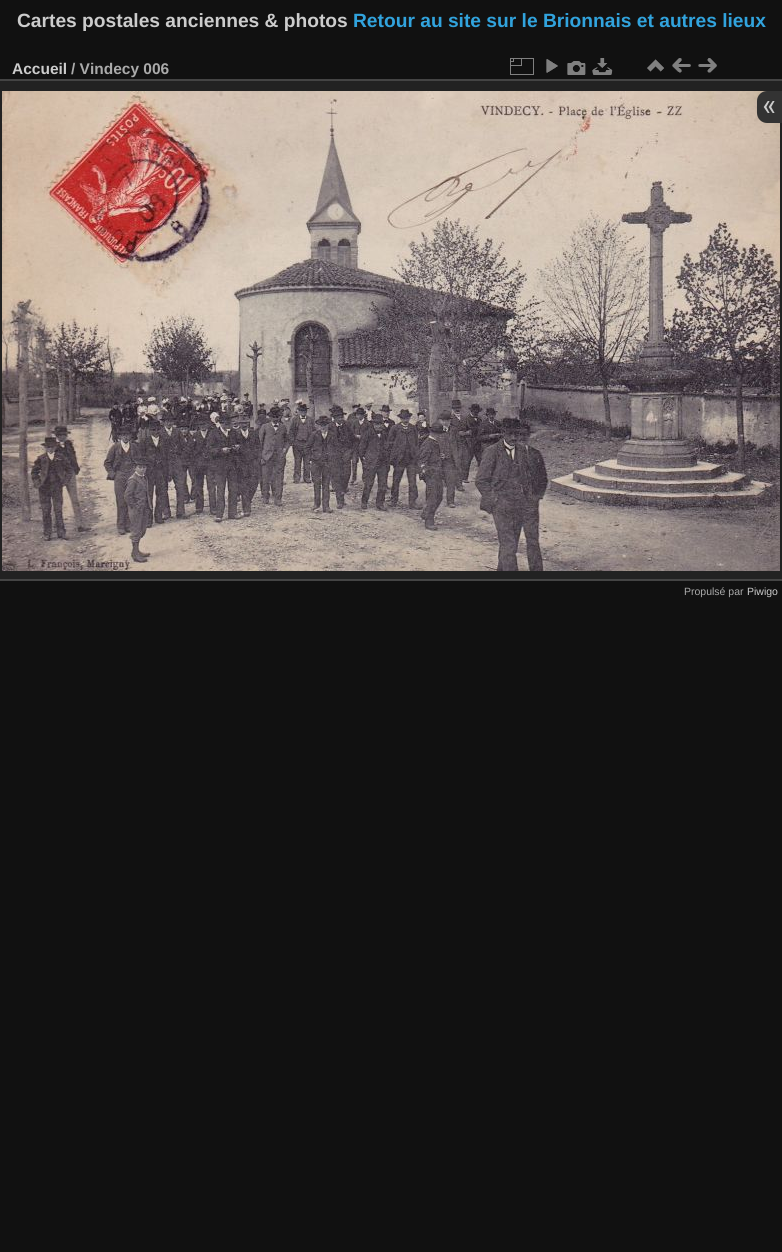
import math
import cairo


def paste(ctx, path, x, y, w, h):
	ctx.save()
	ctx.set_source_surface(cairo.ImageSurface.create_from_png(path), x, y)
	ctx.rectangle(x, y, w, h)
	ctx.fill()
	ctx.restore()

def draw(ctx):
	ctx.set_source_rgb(0.067, 0.067, 0.067)
	ctx.paint()
	ctx.select_font_face('Liberation Sans', cairo.FONT_SLANT_NORMAL, cairo.FONT_WEIGHT_BOLD)
	ctx.set_font_size(19.2)
	ctx.set_source_rgb(0.8, 0.8, 0.8)
	ctx.move_to(17, 27)
	ctx.show_text('Cartes postales anciennes & photos')
	ctx.set_source_rgb(0.192, 0.639, 0.867)
	ctx.move_to(353, 27)
	ctx.show_text('Retour au site sur le Brionnais et autres lieux')
	ctx.set_source_rgb(0.133, 0.133, 0.133)
	ctx.rectangle(0, 81, 782, 498)
	ctx.fill()
	ctx.set_source_rgb(0.267, 0.267, 0.267)
	ctx.rectangle(0, 579, 782, 2)
	ctx.rectangle(0, 79, 782, 2)
	ctx.fill()
	ctx.set_font_size(15.5)
	ctx.set_source_rgb(0.8, 0.8, 0.8)
	ctx.move_to(12, 74)
	ctx.show_text('Accueil')
	ctx.set_source_rgb(0.667, 0.667, 0.667)
	ctx.move_to(71, 74)
	ctx.show_text('/ Vindecy 006')
	paste(ctx, 'media/1.png', 510, 58, 24, 17)
	paste(ctx, 'media/2.png', 546, 59, 12, 14)
	paste(ctx, 'media/3.png', 567, 61, 19, 14)
	paste(ctx, 'media/4.png', 592, 58, 21, 17)
	paste(ctx, 'media/5.png', 647, 59, 17, 13)
	paste(ctx, 'media/6.png', 672, 58, 19, 15)
	paste(ctx, 'media/7.png', 698, 58, 19, 15)
	paste(ctx, 'media/8.png', 2, 91, 778, 480)
	ctx.set_source_rgb(0.2, 0.2, 0.2)
	ctx.new_path()
	ctx.move_to(767, 91)
	ctx.line_to(782, 91)
	ctx.line_to(782, 123)
	ctx.line_to(767, 123)
	ctx.curve_to(761.5, 123, 757, 118.5, 757, 113)
	ctx.line_to(757, 101)
	ctx.curve_to(757, 95.5, 761.5, 91, 767, 91)
	ctx.close_path()
	ctx.fill()
	paste(ctx, 'media/9.png', 763, 101, 12, 12)
	ctx.select_font_face('Liberation Sans')
	ctx.set_font_size(10.5)
	ctx.set_source_rgb(0.667, 0.667, 0.667)
	ctx.move_to(684, 595)
	ctx.show_text('Propulsé par')
	ctx.set_source_rgb(0.8, 0.8, 0.8)
	ctx.move_to(747, 595)
	ctx.show_text('Piwigo')


surface = cairo.ImageSurface(cairo.FORMAT_RGB24, 782, 1252)
ctx = cairo.Context(surface)
options = cairo.FontOptions()
options.set_hint_metrics(cairo.HINT_METRICS_OFF)
options.set_hint_style(cairo.HINT_STYLE_NONE)
ctx.set_font_options(options)
ctx.set_miter_limit(4)
draw(ctx)
surface.write_to_png('image.png')
